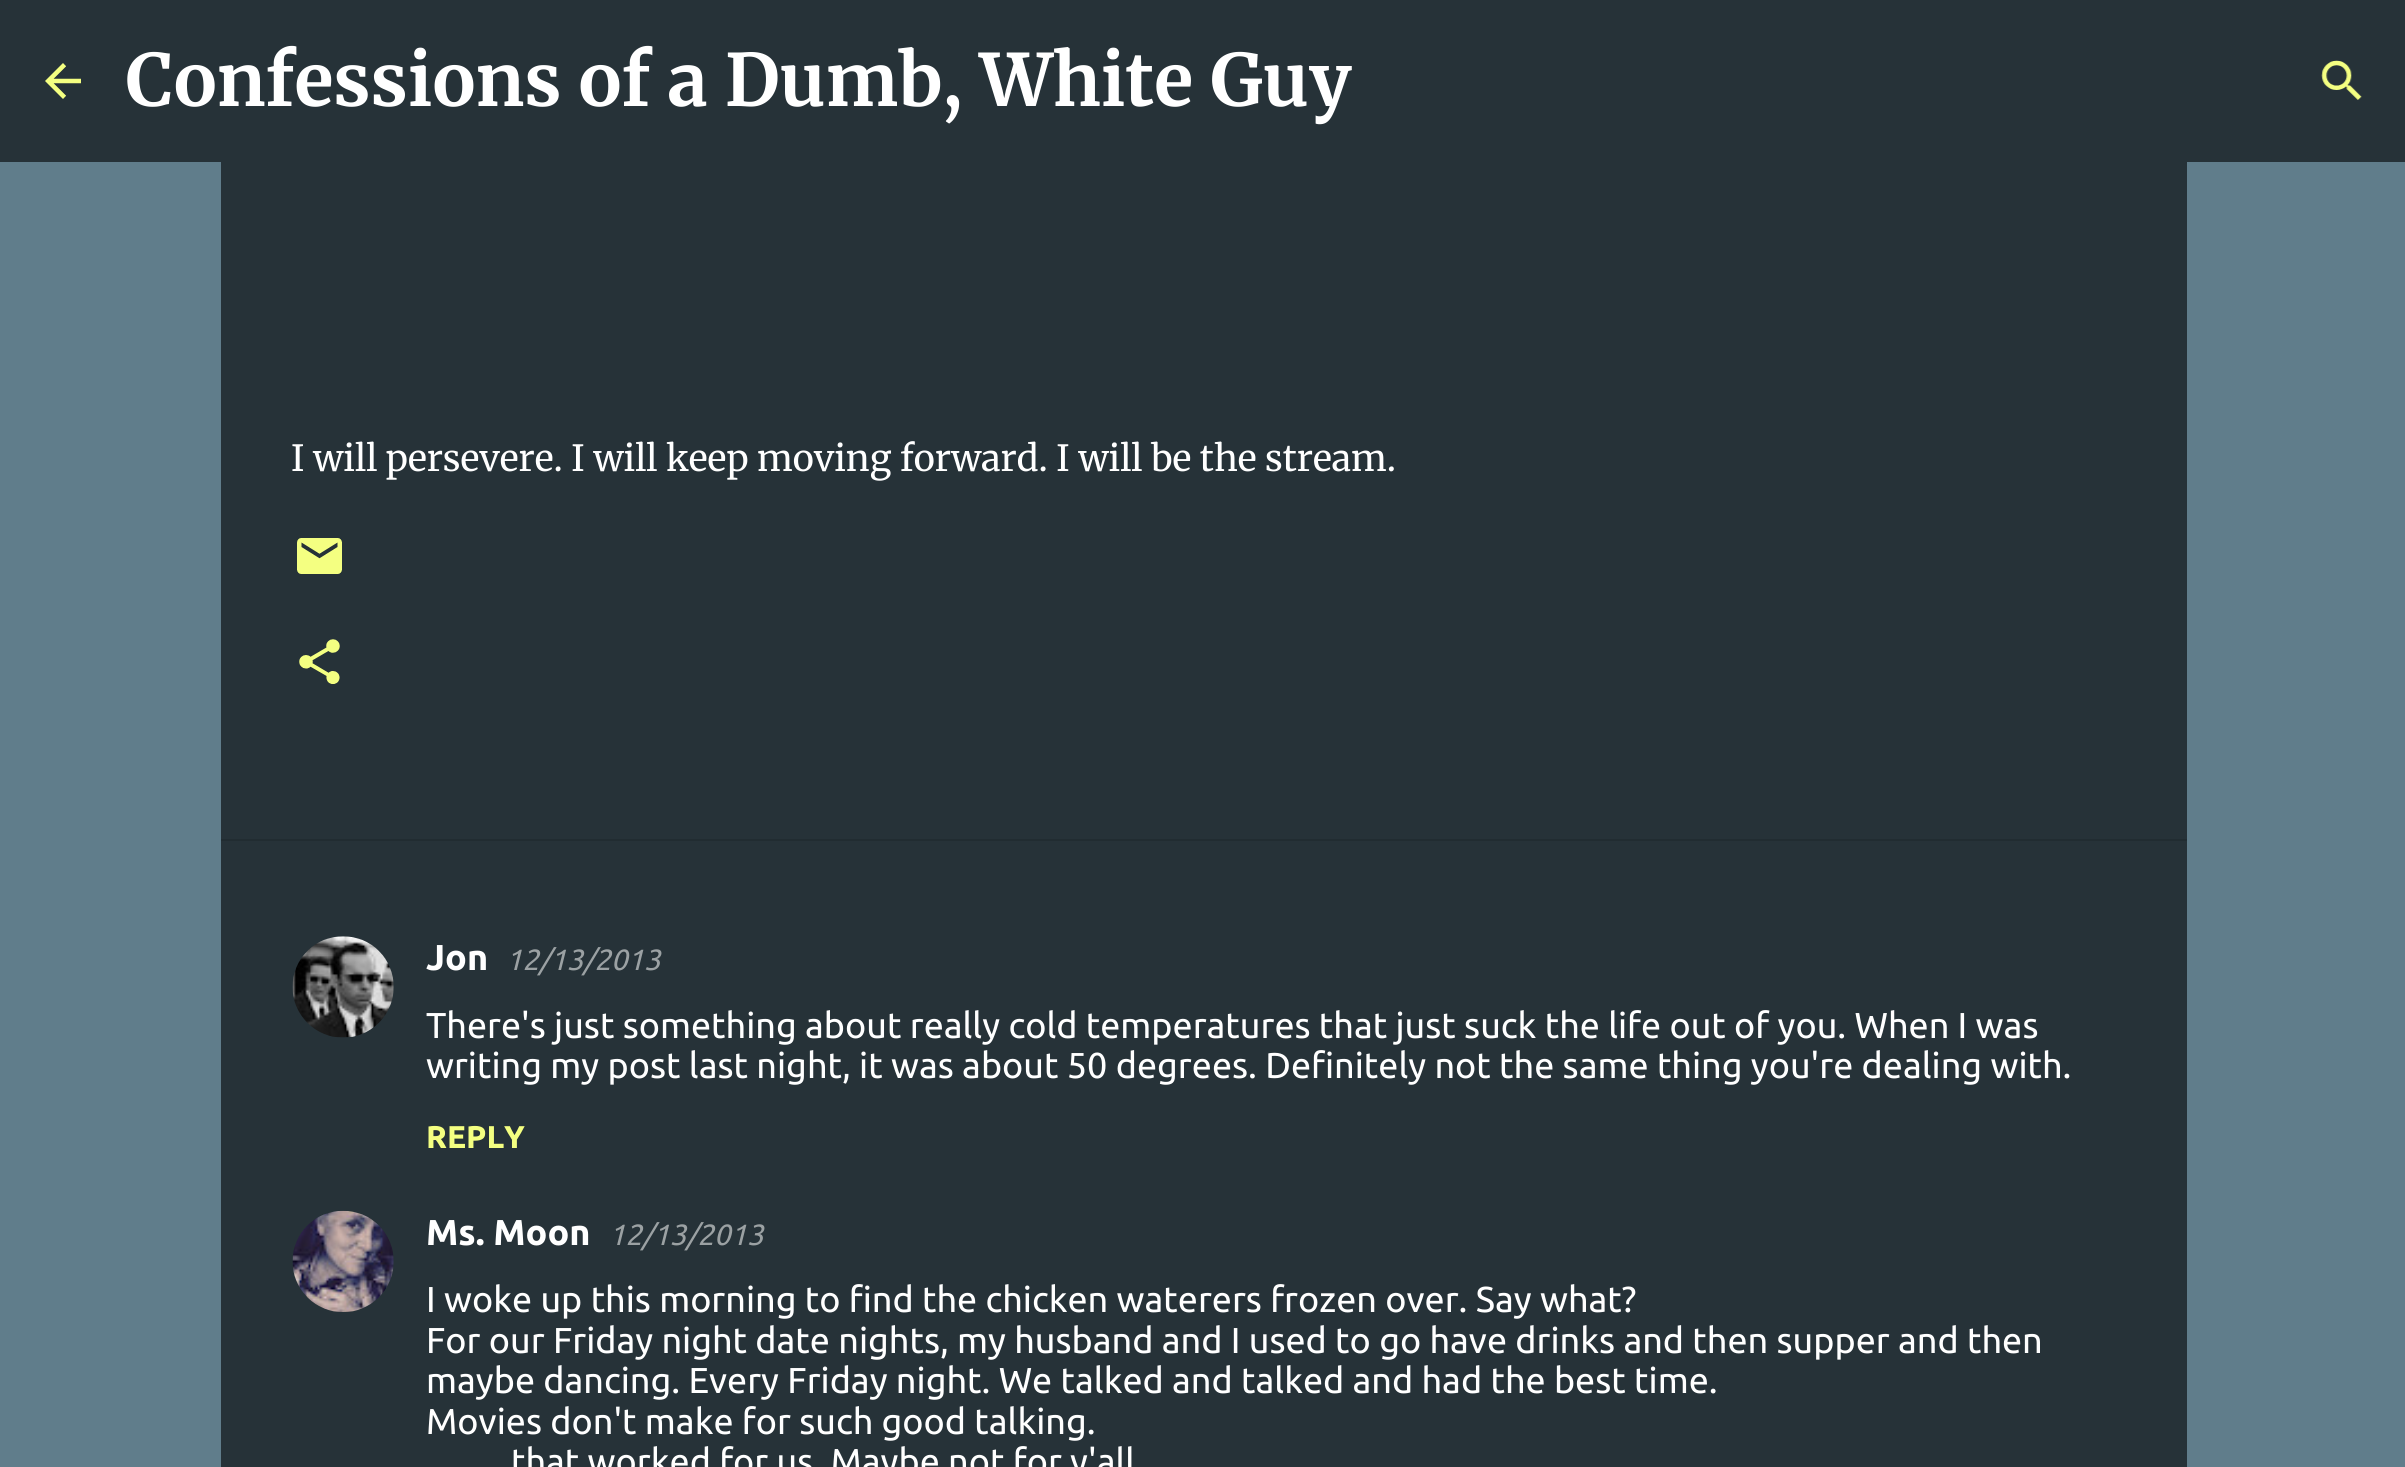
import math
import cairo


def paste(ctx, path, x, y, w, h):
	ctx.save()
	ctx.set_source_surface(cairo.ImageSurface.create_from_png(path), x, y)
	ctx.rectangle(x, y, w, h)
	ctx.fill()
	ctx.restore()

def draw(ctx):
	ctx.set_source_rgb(0.376, 0.49, 0.545)
	ctx.paint()
	ctx.set_source_rgb(0.149, 0.196, 0.22)
	ctx.rectangle(0, 0, 2405, 162)
	ctx.fill()
	paste(ctx, 'media/1.png', 45, 63, 36, 36)
	ctx.select_font_face('Merriweather', cairo.FONT_SLANT_NORMAL, cairo.FONT_WEIGHT_BOLD)
	ctx.set_font_size(72)
	ctx.set_source_rgb(1, 1, 1)
	ctx.move_to(126, 106)
	ctx.show_text('Confessions of a Dumb, White Guy')
	paste(ctx, 'media/2.png', 2321, 60, 41, 40)
	ctx.set_source_rgb(0.149, 0.196, 0.22)
	ctx.rectangle(221, 162, 1966, 677)
	ctx.fill()
	ctx.select_font_face('Merriweather')
	ctx.set_font_size(36)
	ctx.set_source_rgb(1, 1, 1)
	ctx.move_to(291, 471)
	ctx.show_text('I will persevere. I will keep moving forward. I will be the stream.')
	paste(ctx, 'media/3.png', 297, 538, 45, 36)
	paste(ctx, 'media/4.png', 299, 639, 41, 45)
	ctx.set_source_rgb(0.149, 0.196, 0.22)
	ctx.rectangle(221, 841, 1966, 626)
	ctx.fill()
	ctx.set_source_rgb(0.129, 0.173, 0.192)
	ctx.rectangle(221, 839, 1966, 2)
	ctx.fill()
	paste(ctx, 'media/5.png', 292, 936, 102, 102)
	ctx.select_font_face('Ubuntu', cairo.FONT_SLANT_NORMAL, cairo.FONT_WEIGHT_BOLD)
	ctx.set_source_rgb(1, 1, 1)
	ctx.move_to(426, 970)
	ctx.show_text('Jon')
	ctx.select_font_face('Ubuntu', cairo.FONT_SLANT_ITALIC)
	ctx.set_font_size(29.25)
	ctx.set_source_rgb(0.608, 0.631, 0.639)
	ctx.move_to(506, 970)
	ctx.show_text('12/13/2013')
	ctx.select_font_face('Ubuntu')
	ctx.set_font_size(36)
	ctx.set_source_rgb(1, 1, 1)
	ctx.move_to(426, 1038)
	ctx.show_text('There\'s just something about really cold temperatures that just suck the life out of you. When I was')
	ctx.move_to(426, 1078)
	ctx.show_text('writing my post last night, it was about 50 degrees. Definitely not the same thing you\'re dealing with.')
	ctx.select_font_face('Ubuntu', cairo.FONT_SLANT_NORMAL, cairo.FONT_WEIGHT_BOLD)
	ctx.set_font_size(31.5)
	ctx.set_source_rgb(0.957, 1, 0.506)
	ctx.move_to(426, 1148)
	ctx.show_text('REPLY')
	paste(ctx, 'media/6.png', 292, 1210, 102, 102)
	ctx.set_font_size(36)
	ctx.set_source_rgb(1, 1, 1)
	ctx.move_to(426, 1245)
	ctx.show_text('Ms. Moon')
	ctx.select_font_face('Ubuntu', cairo.FONT_SLANT_ITALIC)
	ctx.set_font_size(29.25)
	ctx.set_source_rgb(0.608, 0.631, 0.639)
	ctx.move_to(609, 1245)
	ctx.show_text('12/13/2013')
	ctx.select_font_face('Ubuntu')
	ctx.set_font_size(36)
	ctx.set_source_rgb(1, 1, 1)
	for x, y, s in [
		(426, 1312, 'I woke up this morning to find the chicken waterers frozen over. Say what?'),
		(426, 1353, 'For our Friday night date nights, my husband and I used to go have drinks and then supper and then'),
		(426, 1393, 'maybe dancing. Every Friday night. We talked and talked and had the best time.'),
		(426, 1434, 'Movies don\'t make for such good talking.'),
		(511, 1474, 'that worked for us. Maybe not for y\'all'),
	]:
		ctx.move_to(x, y)
		ctx.show_text(s)


surface = cairo.ImageSurface(cairo.FORMAT_RGB24, 2405, 1467)
ctx = cairo.Context(surface)
options = cairo.FontOptions()
options.set_hint_metrics(cairo.HINT_METRICS_OFF)
options.set_hint_style(cairo.HINT_STYLE_NONE)
ctx.set_font_options(options)
ctx.set_miter_limit(4)
draw(ctx)
surface.write_to_png('image.png')
